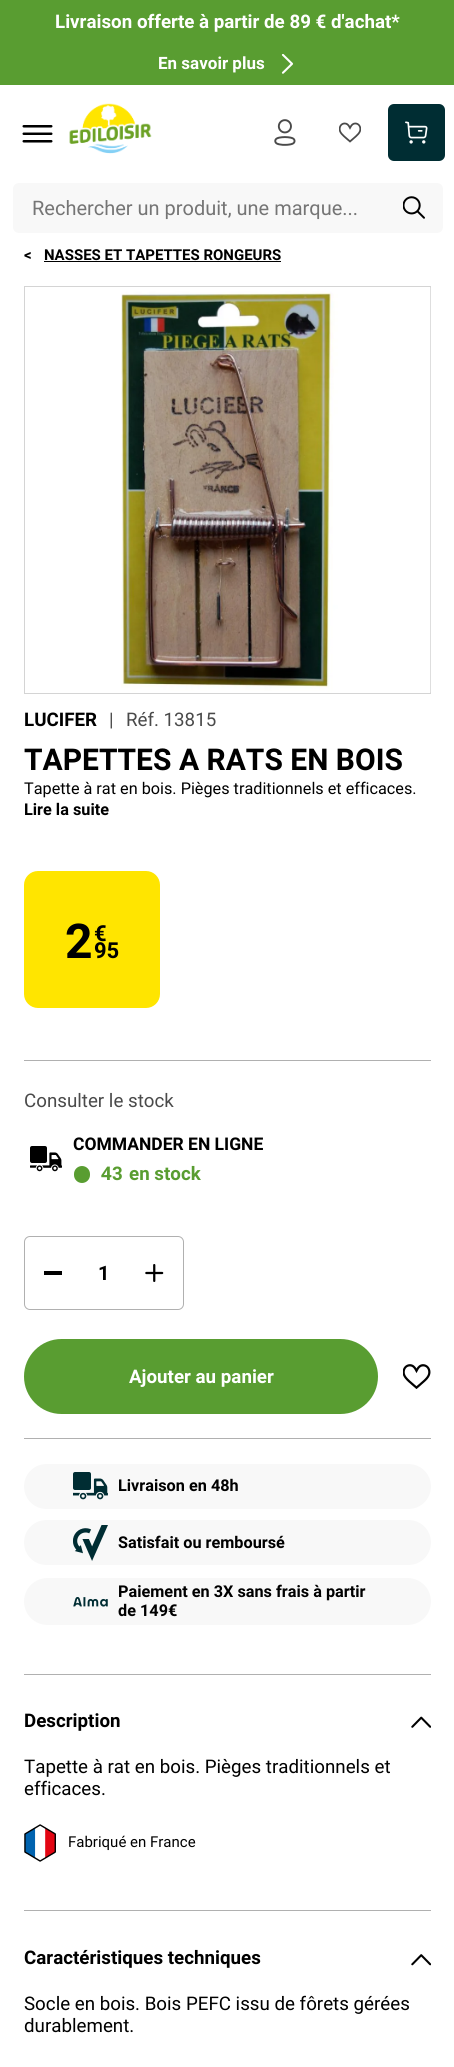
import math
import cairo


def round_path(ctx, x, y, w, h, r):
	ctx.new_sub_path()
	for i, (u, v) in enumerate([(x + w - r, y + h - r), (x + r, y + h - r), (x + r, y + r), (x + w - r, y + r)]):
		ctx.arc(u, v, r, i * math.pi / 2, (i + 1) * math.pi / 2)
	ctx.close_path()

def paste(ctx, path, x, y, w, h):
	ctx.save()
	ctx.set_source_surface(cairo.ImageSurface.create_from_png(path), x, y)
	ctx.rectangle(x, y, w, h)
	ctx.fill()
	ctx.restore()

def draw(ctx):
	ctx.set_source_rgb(1, 1, 1)
	ctx.paint()
	ctx.set_source_rgb(0.349, 0.616, 0.192)
	ctx.rectangle(0, 0, 454, 85)
	ctx.fill()
	ctx.select_font_face('Roboto', cairo.FONT_SLANT_NORMAL, cairo.FONT_WEIGHT_BOLD)
	ctx.set_font_size(18.75)
	ctx.set_source_rgb(1, 1, 1)
	ctx.move_to(55, 28)
	ctx.show_text('Livraison offerte à partir de 89 € d\'achat*')
	ctx.set_font_size(17)
	ctx.move_to(158, 69)
	ctx.show_text('En savoir plus')
	paste(ctx, 'media/1.png', 281, 54, 13, 20)
	paste(ctx, 'media/2.png', 69, 103, 83, 51)
	paste(ctx, 'media/3.png', 22, 125, 31, 18)
	paste(ctx, 'media/4.png', 274, 119, 22, 27)
	paste(ctx, 'media/5.png', 339, 122, 22, 21)
	ctx.set_source_rgb(0, 0.176, 0.2)
	round_path(ctx, 388, 104, 57, 57, 6)
	ctx.fill()
	paste(ctx, 'media/6.png', 405, 121, 23, 23)
	ctx.set_source_rgb(0.969, 0.969, 0.969)
	round_path(ctx, 13, 183, 430, 50, 6)
	ctx.fill()
	ctx.select_font_face('Roboto')
	ctx.set_font_size(20)
	ctx.set_source_rgb(0.459, 0.459, 0.459)
	ctx.move_to(32, 215)
	ctx.show_text('Rechercher un produit, une marque...')
	paste(ctx, 'media/7.png', 403, 196, 22, 23)
	ctx.select_font_face('Roboto', cairo.FONT_SLANT_NORMAL, cairo.FONT_WEIGHT_BOLD)
	ctx.set_font_size(15)
	ctx.set_source_rgb(0, 0, 0)
	ctx.move_to(24, 260)
	ctx.show_text('<')
	ctx.move_to(44, 260)
	ctx.show_text('NASSES ET TAPETTES RONGEURS')
	ctx.rectangle(44, 261, 237, 1)
	ctx.fill()
	ctx.rectangle(24.5, 286.5, 406, 407)
	ctx.set_source_rgb(0.831, 0.831, 0.831)
	ctx.set_line_width(1)
	ctx.stroke()
	paste(ctx, 'media/8.png', 121, 287, 310, 406)
	ctx.set_font_size(18.75)
	ctx.set_source_rgb(0, 0, 0)
	ctx.move_to(24, 726)
	ctx.show_text('LUCIFER')
	ctx.select_font_face('Roboto')
	ctx.set_source_rgb(0.29, 0.29, 0.29)
	ctx.move_to(109, 726)
	ctx.show_text('|')
	ctx.move_to(126, 726)
	ctx.show_text('Réf. 13815')
	ctx.select_font_face('Roboto', cairo.FONT_SLANT_NORMAL, cairo.FONT_WEIGHT_BOLD)
	ctx.set_font_size(30)
	ctx.set_source_rgb(0, 0, 0)
	ctx.move_to(24, 770)
	ctx.show_text('TAPETTES A RATS EN BOIS')
	ctx.select_font_face('Roboto')
	ctx.set_font_size(16.25)
	ctx.move_to(24, 794)
	ctx.show_text('Tapette à rat en bois. Pièges traditionnels et efficaces.')
	ctx.select_font_face('Roboto', cairo.FONT_SLANT_NORMAL, cairo.FONT_WEIGHT_BOLD)
	ctx.move_to(24, 815)
	ctx.show_text('Lire la suite')
	ctx.set_source_rgb(1, 0.898, 0)
	round_path(ctx, 26, 873, 132, 133, 12)
	ctx.fill_preserve()
	ctx.set_line_width(4)
	ctx.stroke()
	ctx.set_font_size(48)
	ctx.set_source_rgb(0, 0, 0)
	ctx.move_to(65, 958)
	ctx.show_text('2')
	ctx.set_font_size(22)
	ctx.move_to(94, 941)
	ctx.show_text('€')
	ctx.move_to(94, 958)
	ctx.show_text('95')
	ctx.set_source_rgb(0.69, 0.69, 0.69)
	ctx.rectangle(24, 1060, 407, 1)
	ctx.fill()
	ctx.select_font_face('Roboto')
	ctx.set_font_size(18.75)
	ctx.set_source_rgb(0.29, 0.29, 0.29)
	ctx.move_to(24, 1107)
	ctx.show_text('Consulter le stock')
	paste(ctx, 'media/9.png', 30, 1146, 32, 26)
	ctx.select_font_face('Roboto', cairo.FONT_SLANT_NORMAL, cairo.FONT_WEIGHT_BOLD)
	ctx.set_font_size(17.5)
	ctx.set_source_rgb(0, 0, 0)
	ctx.move_to(73, 1150)
	ctx.show_text('COMMANDER EN LIGNE')
	ctx.set_source_rgb(0.349, 0.616, 0.192)
	round_path(ctx, 74, 1166, 16, 17, 8)
	ctx.fill()
	ctx.select_font_face('Noto Sans', cairo.FONT_SLANT_NORMAL, cairo.FONT_WEIGHT_BOLD)
	ctx.set_font_size(18.75)
	ctx.move_to(101, 1180)
	ctx.show_text('4')
	ctx.select_font_face('Roboto', cairo.FONT_SLANT_NORMAL, cairo.FONT_WEIGHT_BOLD)
	ctx.move_to(112, 1180)
	ctx.show_text('3')
	ctx.move_to(129, 1180)
	ctx.show_text('en stock')
	round_path(ctx, 24.5, 1236.5, 159, 73, 5.5)
	ctx.set_source_rgb(0.69, 0.69, 0.69)
	ctx.set_line_width(1)
	ctx.stroke()
	ctx.set_source_rgb(0, 0, 0)
	ctx.rectangle(44, 1271, 18, 4)
	ctx.fill()
	ctx.set_font_size(20)
	ctx.move_to(98, 1280)
	ctx.show_text('1')
	paste(ctx, 'media/10.png', 145, 1264, 19, 18)
	ctx.set_source_rgb(0.349, 0.616, 0.192)
	round_path(ctx, 24, 1339, 354, 75, 37.5)
	ctx.fill()
	ctx.set_font_size(18.75)
	ctx.set_source_rgb(1, 1, 1)
	ctx.move_to(129, 1383)
	ctx.show_text('Ajouter au panier')
	paste(ctx, 'media/11.png', 403, 1364, 28, 25)
	ctx.set_source_rgb(0.69, 0.69, 0.69)
	ctx.rectangle(24, 1438, 407, 1)
	ctx.fill()
	ctx.set_source_rgb(0.969, 0.969, 0.969)
	round_path(ctx, 24, 1464, 407, 45, 22.5)
	ctx.fill()
	paste(ctx, 'media/12.png', 73, 1472, 35, 28)
	ctx.set_font_size(16.25)
	ctx.set_source_rgb(0, 0, 0)
	ctx.move_to(118, 1491)
	ctx.show_text('Livraison en 48h')
	ctx.set_source_rgb(0.969, 0.969, 0.969)
	round_path(ctx, 24, 1520, 407, 45, 22.5)
	ctx.fill()
	paste(ctx, 'media/13.png', 73, 1525, 35, 36)
	ctx.set_source_rgb(0, 0, 0)
	ctx.move_to(118, 1548)
	ctx.show_text('Satisfait ou remboursé')
	ctx.set_source_rgb(0.969, 0.969, 0.969)
	round_path(ctx, 24, 1578, 407, 47, 23.5)
	ctx.fill()
	ctx.set_source_rgb(0, 0, 0)
	ctx.move_to(118, 1597)
	ctx.show_text('Paiement en 3X sans frais à partir')
	paste(ctx, 'media/14.png', 73, 1597, 35, 10)
	ctx.move_to(118, 1616)
	ctx.show_text('de 149€')
	ctx.set_source_rgb(0.69, 0.69, 0.69)
	ctx.rectangle(24, 1674, 407, 1)
	ctx.fill()
	ctx.rectangle(24, 1910, 407, 1)
	ctx.fill()
	ctx.set_font_size(18.75)
	ctx.set_source_rgb(0, 0, 0)
	ctx.move_to(24, 1727)
	ctx.show_text('Description')
	paste(ctx, 'media/15.png', 411, 1716, 20, 12)
	ctx.select_font_face('Roboto')
	ctx.move_to(24, 1773)
	ctx.show_text('Tapette à rat en bois. Pièges traditionnels et')
	ctx.move_to(24, 1795)
	ctx.show_text('efficaces.')
	paste(ctx, 'media/16.png', 24, 1824, 32, 38)
	ctx.set_font_size(15)
	ctx.move_to(68, 1847)
	ctx.show_text('Fabriqué en France')
	ctx.select_font_face('Roboto', cairo.FONT_SLANT_NORMAL, cairo.FONT_WEIGHT_BOLD)
	ctx.set_font_size(18.75)
	ctx.move_to(24, 1964)
	ctx.show_text('Caractéristiques techniques')
	paste(ctx, 'media/17.png', 411, 1954, 20, 12)
	ctx.select_font_face('Roboto')
	ctx.move_to(24, 2010)
	ctx.show_text('Socle en bois. Bois PEFC issu de fôrets gérées')
	ctx.move_to(24, 2032)
	ctx.show_text('durablement.')


surface = cairo.ImageSurface(cairo.FORMAT_RGB24, 454, 2067)
ctx = cairo.Context(surface)
options = cairo.FontOptions()
options.set_hint_metrics(cairo.HINT_METRICS_OFF)
options.set_hint_style(cairo.HINT_STYLE_NONE)
ctx.set_font_options(options)
ctx.set_miter_limit(4)
draw(ctx)
surface.write_to_png('image.png')
